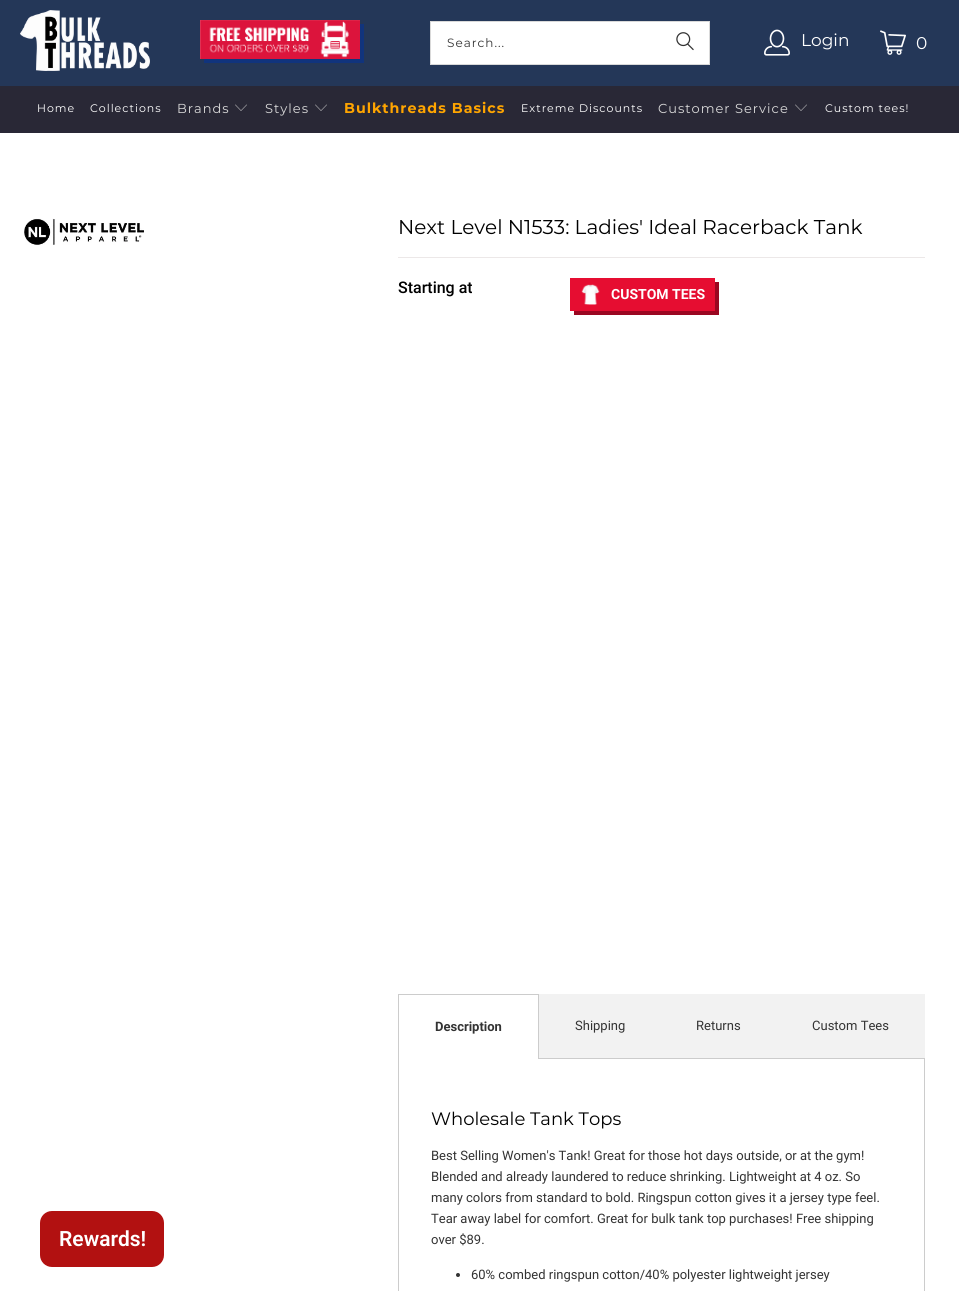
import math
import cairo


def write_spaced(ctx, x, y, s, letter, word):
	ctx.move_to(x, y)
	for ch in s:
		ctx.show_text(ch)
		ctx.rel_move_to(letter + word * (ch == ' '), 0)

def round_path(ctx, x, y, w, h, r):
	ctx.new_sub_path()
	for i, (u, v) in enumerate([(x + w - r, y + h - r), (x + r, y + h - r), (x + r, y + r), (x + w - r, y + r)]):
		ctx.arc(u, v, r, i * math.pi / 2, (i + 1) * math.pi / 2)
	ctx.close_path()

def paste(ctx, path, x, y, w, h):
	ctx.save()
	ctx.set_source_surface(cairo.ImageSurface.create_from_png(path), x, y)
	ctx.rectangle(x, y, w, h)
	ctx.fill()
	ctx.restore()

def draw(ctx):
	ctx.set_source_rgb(1, 1, 1)
	ctx.paint()
	ctx.set_source_rgb(0.141, 0.216, 0.345)
	ctx.rectangle(0, 0, 959, 86)
	ctx.fill()
	paste(ctx, 'media/1.png', 20, 10, 130, 61)
	ctx.set_source_rgb(0.067, 0.204, 0.49)
	ctx.new_path()
	ctx.move_to(204, 59)
	ctx.line_to(204, 63)
	ctx.line_to(364, 63)
	ctx.line_to(364, 24)
	ctx.line_to(360, 24)
	ctx.line_to(360, 59)
	ctx.close_path()
	ctx.fill()
	paste(ctx, 'media/2.png', 200, 20, 160, 39)
	ctx.set_source_rgb(1, 1, 1)
	ctx.rectangle(430.5, 21.5, 279, 43)
	ctx.fill_preserve()
	ctx.set_source_rgb(0.851, 0.851, 0.851)
	ctx.set_line_width(1)
	ctx.stroke()
	ctx.select_font_face('Montserrat')
	ctx.set_font_size(12)
	ctx.set_source_rgb(0.2, 0.2, 0.2)
	write_spaced(ctx, 447, 47, 'Search...', 1, 0)
	paste(ctx, 'media/3.png', 676, 32, 18, 19)
	paste(ctx, 'media/4.png', 764, 29, 26, 27)
	ctx.set_font_size(17)
	ctx.set_source_rgb(1, 1, 1)
	ctx.move_to(801, 46)
	ctx.show_text('Login')
	paste(ctx, 'media/5.png', 880, 30, 26, 25)
	ctx.move_to(916, 49)
	ctx.show_text('0')
	ctx.set_source_rgb(0.161, 0.157, 0.212)
	ctx.rectangle(0, 86, 959, 47)
	ctx.fill()
	ctx.set_font_size(11)
	ctx.set_source_rgb(1, 1, 1)
	write_spaced(ctx, 37, 112, 'Home', 1, 0)
	write_spaced(ctx, 90, 112, 'Collections', 1, 0)
	ctx.set_font_size(13)
	ctx.set_source_rgb(0.851, 0.851, 0.851)
	write_spaced(ctx, 177, 113, 'Brands', 1, 0)
	paste(ctx, 'media/6.png', 235, 104, 12, 7)
	write_spaced(ctx, 265, 113, 'Styles', 1, 0)
	paste(ctx, 'media/6.png', 315, 104, 12, 7)
	ctx.select_font_face('Montserrat', cairo.FONT_SLANT_NORMAL, cairo.FONT_WEIGHT_BOLD)
	ctx.set_font_size(14.25)
	ctx.set_source_rgb(1, 0.647, 0)
	write_spaced(ctx, 344, 113, 'Bulkthreads Basics', 1, 0)
	ctx.select_font_face('Montserrat')
	ctx.set_font_size(11)
	ctx.set_source_rgb(1, 1, 1)
	write_spaced(ctx, 521, 112, 'Extreme Discounts', 1, 0)
	ctx.set_font_size(13)
	ctx.set_source_rgb(0.851, 0.851, 0.851)
	write_spaced(ctx, 658, 113, 'Customer Service', 1, 0)
	paste(ctx, 'media/6.png', 795, 104, 12, 7)
	ctx.set_font_size(11)
	ctx.set_source_rgb(1, 1, 1)
	write_spaced(ctx, 825, 112, 'Custom tees!', 1, 0)
	ctx.set_source_rgb(0.698, 0.067, 0.067)
	round_path(ctx, 40, 1211, 124, 56, 12)
	ctx.fill()
	ctx.select_font_face('Roboto SemiBold')
	ctx.set_font_size(21)
	ctx.set_source_rgb(1, 1, 1)
	ctx.move_to(59, 1246)
	ctx.show_text('Rewards!')
	paste(ctx, 'media/7.png', 24, 218, 120, 27)
	ctx.select_font_face('Montserrat')
	ctx.set_font_size(20)
	ctx.set_source_rgb(0, 0, 0)
	ctx.move_to(398, 234)
	ctx.show_text('Next Level N1533: Ladies\' Ideal Racerback Tank')
	ctx.set_source_rgb(0.925, 0.91, 0.91)
	ctx.rectangle(398, 257, 527, 1)
	ctx.fill()
	ctx.select_font_face('Roboto Medium')
	ctx.set_font_size(16)
	ctx.set_source_rgb(0, 0, 0)
	ctx.move_to(398, 293)
	ctx.show_text('Starting at')
	ctx.set_source_rgb(0.604, 0.031, 0.129)
	ctx.new_path()
	ctx.move_to(574, 311)
	ctx.line_to(574, 315)
	ctx.line_to(719, 315)
	ctx.line_to(719, 282)
	ctx.line_to(715, 282)
	ctx.line_to(715, 311)
	ctx.close_path()
	ctx.fill()
	ctx.set_source_rgb(0.902, 0.051, 0.192)
	ctx.rectangle(570, 278, 145, 33)
	ctx.fill()
	paste(ctx, 'media/8.png', 581, 284, 19, 21)
	ctx.select_font_face('Roboto', cairo.FONT_SLANT_NORMAL, cairo.FONT_WEIGHT_BOLD)
	ctx.set_font_size(14)
	ctx.set_source_rgb(1, 1, 1)
	ctx.move_to(611, 299)
	ctx.show_text('CUSTOM TEES')
	ctx.set_source_rgb(0.8, 0.8, 0.8)
	ctx.rectangle(398, 994, 141, 1)
	ctx.rectangle(538, 994, 1, 65)
	ctx.rectangle(398, 994, 1, 297)
	ctx.fill()
	ctx.set_font_size(13)
	ctx.set_source_rgb(0.2, 0.2, 0.2)
	ctx.move_to(435, 1031)
	ctx.show_text('Description')
	ctx.set_source_rgb(0.949, 0.949, 0.949)
	ctx.rectangle(539, 994, 386, 64)
	ctx.fill()
	ctx.set_source_rgb(0.8, 0.8, 0.8)
	ctx.rectangle(539, 1058, 386, 1)
	ctx.fill()
	ctx.select_font_face('Roboto')
	ctx.set_source_rgb(0.2, 0.2, 0.2)
	for x, y, s in [
		(575, 1030, 'Shipping'),
		(696, 1030, 'Returns'),
		(812, 1030, 'Custom Tees'),
	]:
		ctx.move_to(x, y)
		ctx.show_text(s)
	ctx.set_source_rgb(0.8, 0.8, 0.8)
	ctx.rectangle(924, 1059, 1, 232)
	ctx.fill()
	ctx.select_font_face('Montserrat')
	ctx.set_font_size(18)
	ctx.set_source_rgb(0, 0, 0)
	ctx.move_to(431, 1125)
	ctx.show_text('Wholesale Tank Tops')
	ctx.select_font_face('Roboto')
	ctx.set_font_size(13)
	ctx.set_source_rgb(0.2, 0.2, 0.2)
	for x, y, s in [
		(431, 1160, 'Best Selling Women\'s Tank! Great for those hot days outside, or at the gym!'),
		(431, 1181, 'Blended and already laundered to reduce shrinking. Lightweight at 4 oz. So'),
		(431, 1202, 'many colors from standard to bold. Ringspun cotton gives it a jersey type feel.'),
		(431, 1223, 'Tear away label for comfort. Great for bulk tank top purchases! Free shipping'),
		(431, 1244, 'over $89.'),
	]:
		ctx.move_to(x, y)
		ctx.show_text(s)
	ctx.new_path()
	ctx.arc(458, 1275, 2, 0, 2 * math.pi)
	ctx.fill()
	ctx.move_to(471, 1279)
	ctx.show_text('60% combed ringspun cotton/40% polyester lightweight jersey')


surface = cairo.ImageSurface(cairo.FORMAT_RGB24, 959, 1291)
ctx = cairo.Context(surface)
options = cairo.FontOptions()
options.set_hint_metrics(cairo.HINT_METRICS_OFF)
options.set_hint_style(cairo.HINT_STYLE_NONE)
ctx.set_font_options(options)
ctx.set_miter_limit(4)
draw(ctx)
surface.write_to_png('image.png')
